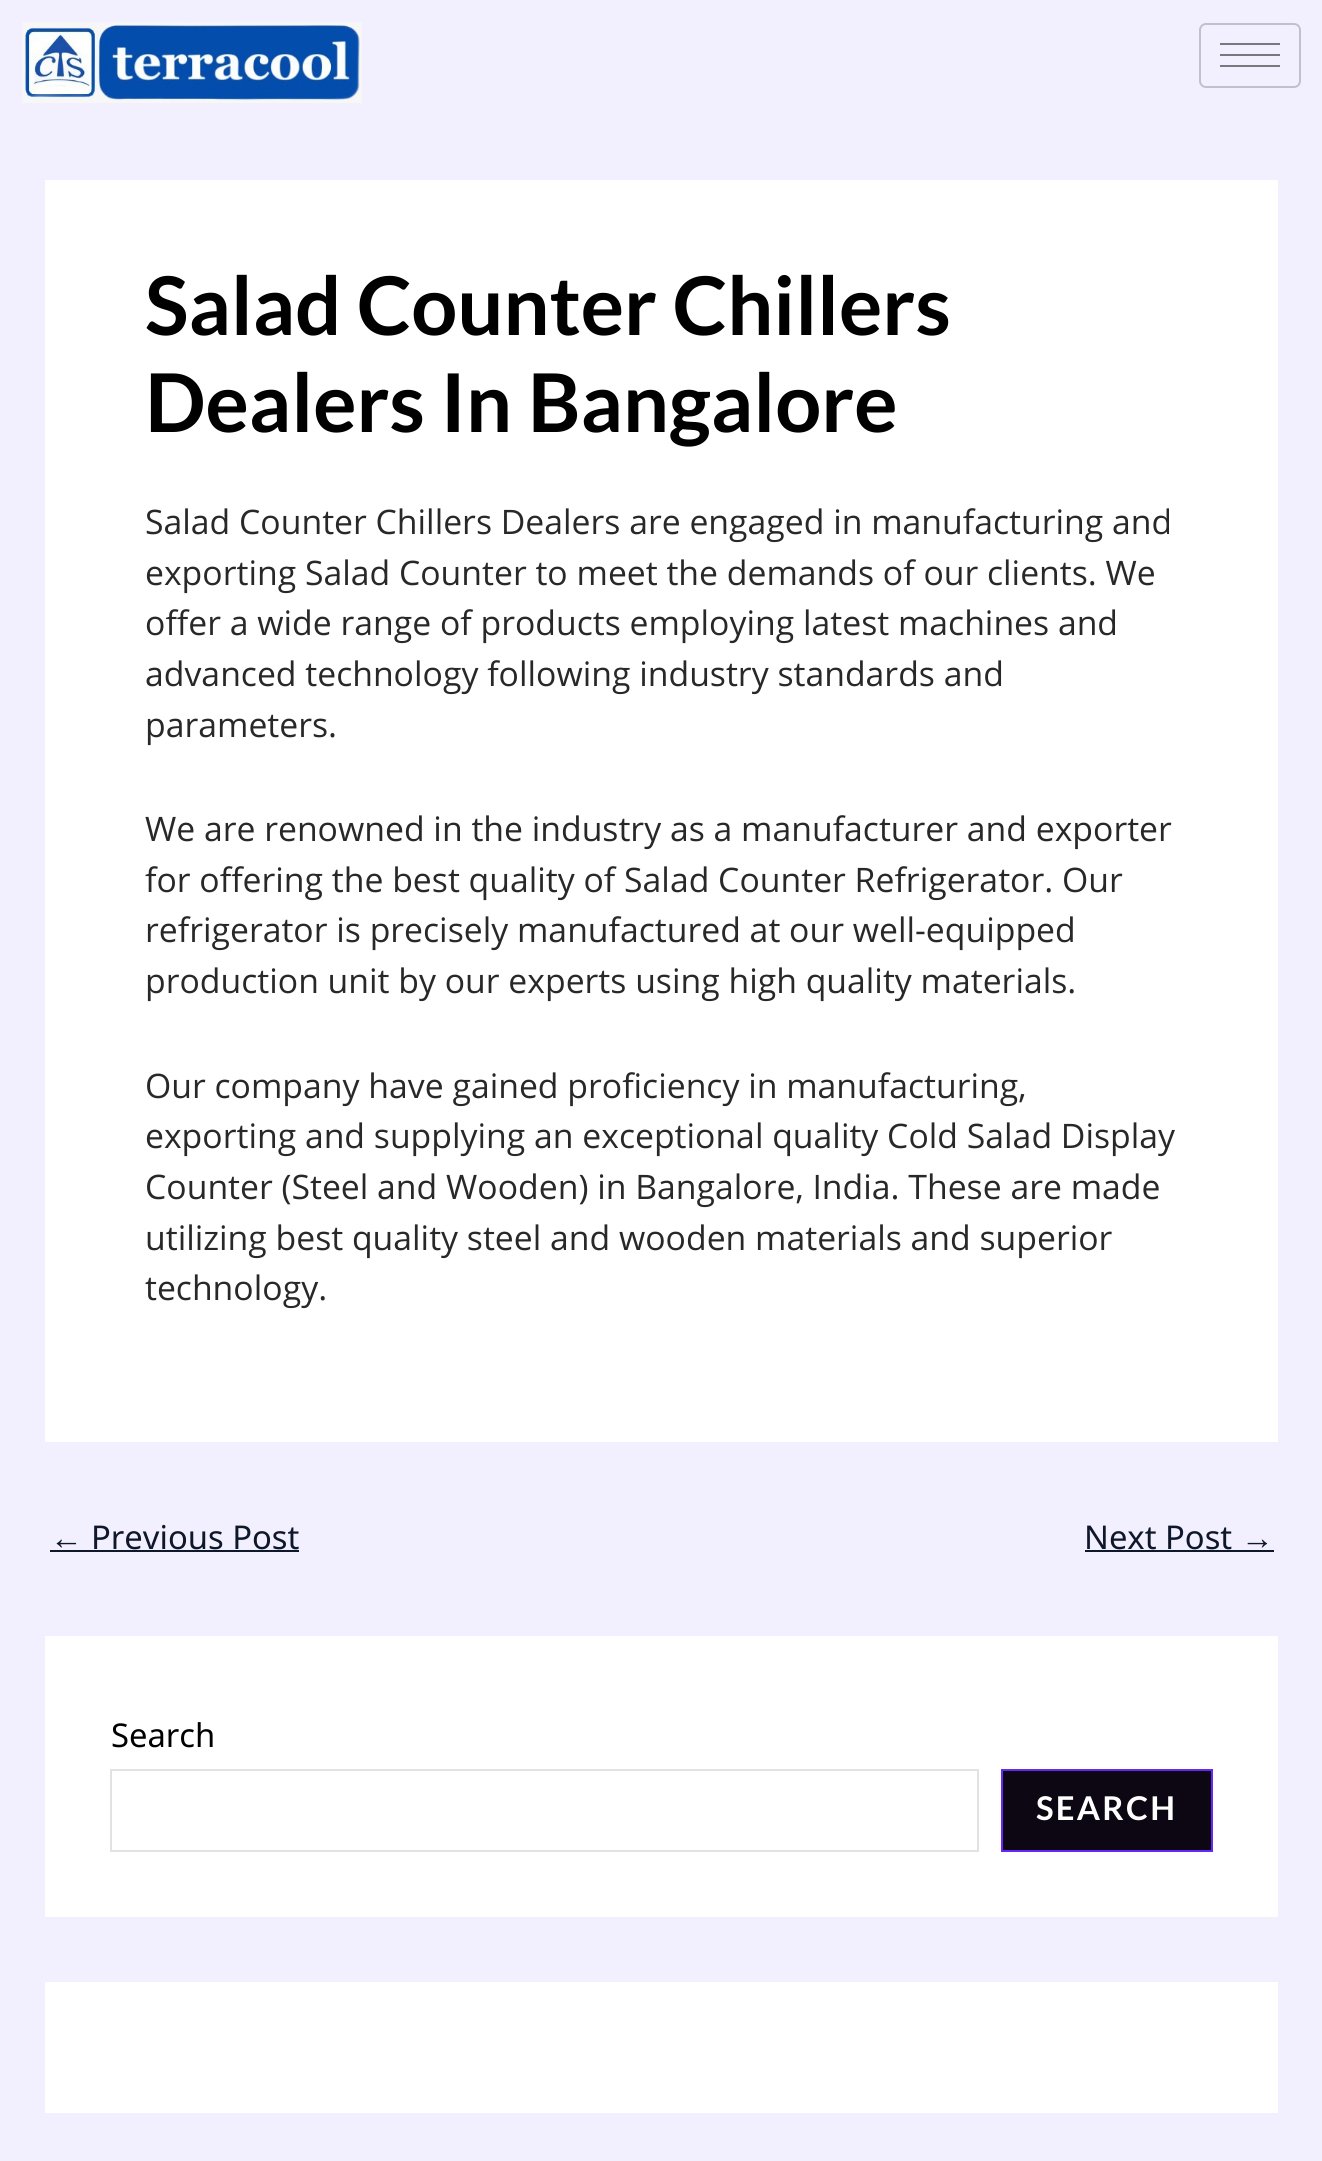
import math
import cairo


def write_spaced(ctx, x, y, s, letter, word):
	ctx.move_to(x, y)
	for ch in s:
		ctx.show_text(ch)
		ctx.rel_move_to(letter + word * (ch == ' '), 0)

def round_path(ctx, x, y, w, h, r):
	ctx.new_sub_path()
	for i, (u, v) in enumerate([(x + w - r, y + h - r), (x + r, y + h - r), (x + r, y + r), (x + w - r, y + r)]):
		ctx.arc(u, v, r, i * math.pi / 2, (i + 1) * math.pi / 2)
	ctx.close_path()

def paste(ctx, path, x, y, w, h):
	ctx.save()
	ctx.set_source_surface(cairo.ImageSurface.create_from_png(path), x, y)
	ctx.rectangle(x, y, w, h)
	ctx.fill()
	ctx.restore()

def draw(ctx):
	ctx.set_source_rgb(0.949, 0.941, 0.996)
	ctx.paint()
	paste(ctx, 'media/1.png', 22, 22, 340, 81)
	round_path(ctx, 1200, 24, 100, 63, 6)
	ctx.set_source_rgb(0.761, 0.753, 0.796)
	ctx.stroke()
	ctx.set_source_rgb(0.475, 0.471, 0.498)
	ctx.rectangle(1220, 43, 60, 2)
	ctx.rectangle(1220, 54, 60, 2)
	ctx.rectangle(1220, 65, 60, 2)
	ctx.fill()
	ctx.set_source_rgb(1, 1, 1)
	ctx.rectangle(45, 180, 1233, 1262)
	ctx.fill()
	ctx.select_font_face('Lato', cairo.FONT_SLANT_NORMAL, cairo.FONT_WEIGHT_BOLD)
	ctx.set_font_size(81)
	ctx.set_source_rgb(0, 0, 0)
	ctx.move_to(145, 335)
	ctx.show_text('Salad Counter Chillers')
	ctx.move_to(145, 432)
	ctx.show_text('Dealers In Bangalore')
	ctx.select_font_face('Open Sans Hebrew')
	ctx.set_font_size(33.75)
	ctx.set_source_rgb(0.157, 0.157, 0.157)
	for x, y, s in [
		(145, 534, 'Salad Counter Chillers Dealers are engaged in manufacturing and'),
		(145, 585, 'exporting Salad Counter to meet the demands of our clients. We'),
		(145, 635, 'offer a wide range of products employing latest machines and'),
		(145, 686, 'advanced technology following industry standards and'),
		(145, 737, 'parameters.'),
		(145, 841, 'We are renowned in the industry as a manufacturer and exporter'),
		(145, 892, 'for offering the best quality of Salad Counter Refrigerator. Our'),
		(145, 942, 'refrigerator is precisely manufactured at our well-equipped'),
		(145, 993, 'production unit by our experts using high quality materials.'),
		(145, 1098, 'Our company have gained proficiency in manufacturing,'),
		(145, 1148, 'exporting and supplying an exceptional quality Cold Salad Display'),
		(145, 1199, 'Counter (Steel and Wooden) in Bangalore, India. These are made'),
		(145, 1250, 'utilizing best quality steel and wooden materials and superior'),
		(145, 1300, 'technology.'),
	]:
		ctx.move_to(x, y)
		ctx.show_text(s)
	ctx.select_font_face('Liberation Sans')
	ctx.set_font_size(32.75)
	ctx.set_source_rgb(0.059, 0.09, 0.165)
	ctx.move_to(50, 1549)
	ctx.show_text('←')
	ctx.rectangle(50, 1550, 249, 2)
	ctx.fill()
	ctx.select_font_face('Noto Sans')
	ctx.move_to(91, 1549)
	ctx.show_text('Previous Post')
	ctx.move_to(1084, 1549)
	ctx.show_text('Next Post')
	ctx.rectangle(1085, 1550, 189, 2)
	ctx.fill()
	ctx.select_font_face('Liberation Sans')
	ctx.move_to(1241, 1549)
	ctx.show_text('→')
	ctx.set_source_rgb(1, 1, 1)
	ctx.rectangle(45, 1636, 1233, 281)
	ctx.fill()
	ctx.select_font_face('Noto Sans')
	ctx.set_source_rgb(0, 0, 0)
	ctx.move_to(111, 1747)
	ctx.show_text('Search')
	ctx.rectangle(111, 1770, 867, 81)
	ctx.set_source_rgb(0.886, 0.886, 0.886)
	ctx.stroke()
	ctx.set_source_rgb(0.051, 0.024, 0.078)
	ctx.rectangle(1002, 1770, 210, 81)
	ctx.fill_preserve()
	ctx.set_source_rgb(0.396, 0.157, 0.969)
	ctx.stroke()
	ctx.select_font_face('Lato', cairo.FONT_SLANT_NORMAL, cairo.FONT_WEIGHT_BOLD)
	ctx.set_source_rgb(1, 1, 1)
	write_spaced(ctx, 1036, 1820, 'SEARCH', 2.25, 0)
	ctx.rectangle(45, 1982, 1233, 131)
	ctx.fill()


surface = cairo.ImageSurface(cairo.FORMAT_RGB24, 1322, 2161)
ctx = cairo.Context(surface)
options = cairo.FontOptions()
options.set_hint_metrics(cairo.HINT_METRICS_OFF)
options.set_hint_style(cairo.HINT_STYLE_NONE)
ctx.set_font_options(options)
ctx.set_miter_limit(4)
draw(ctx)
surface.write_to_png('image.png')
